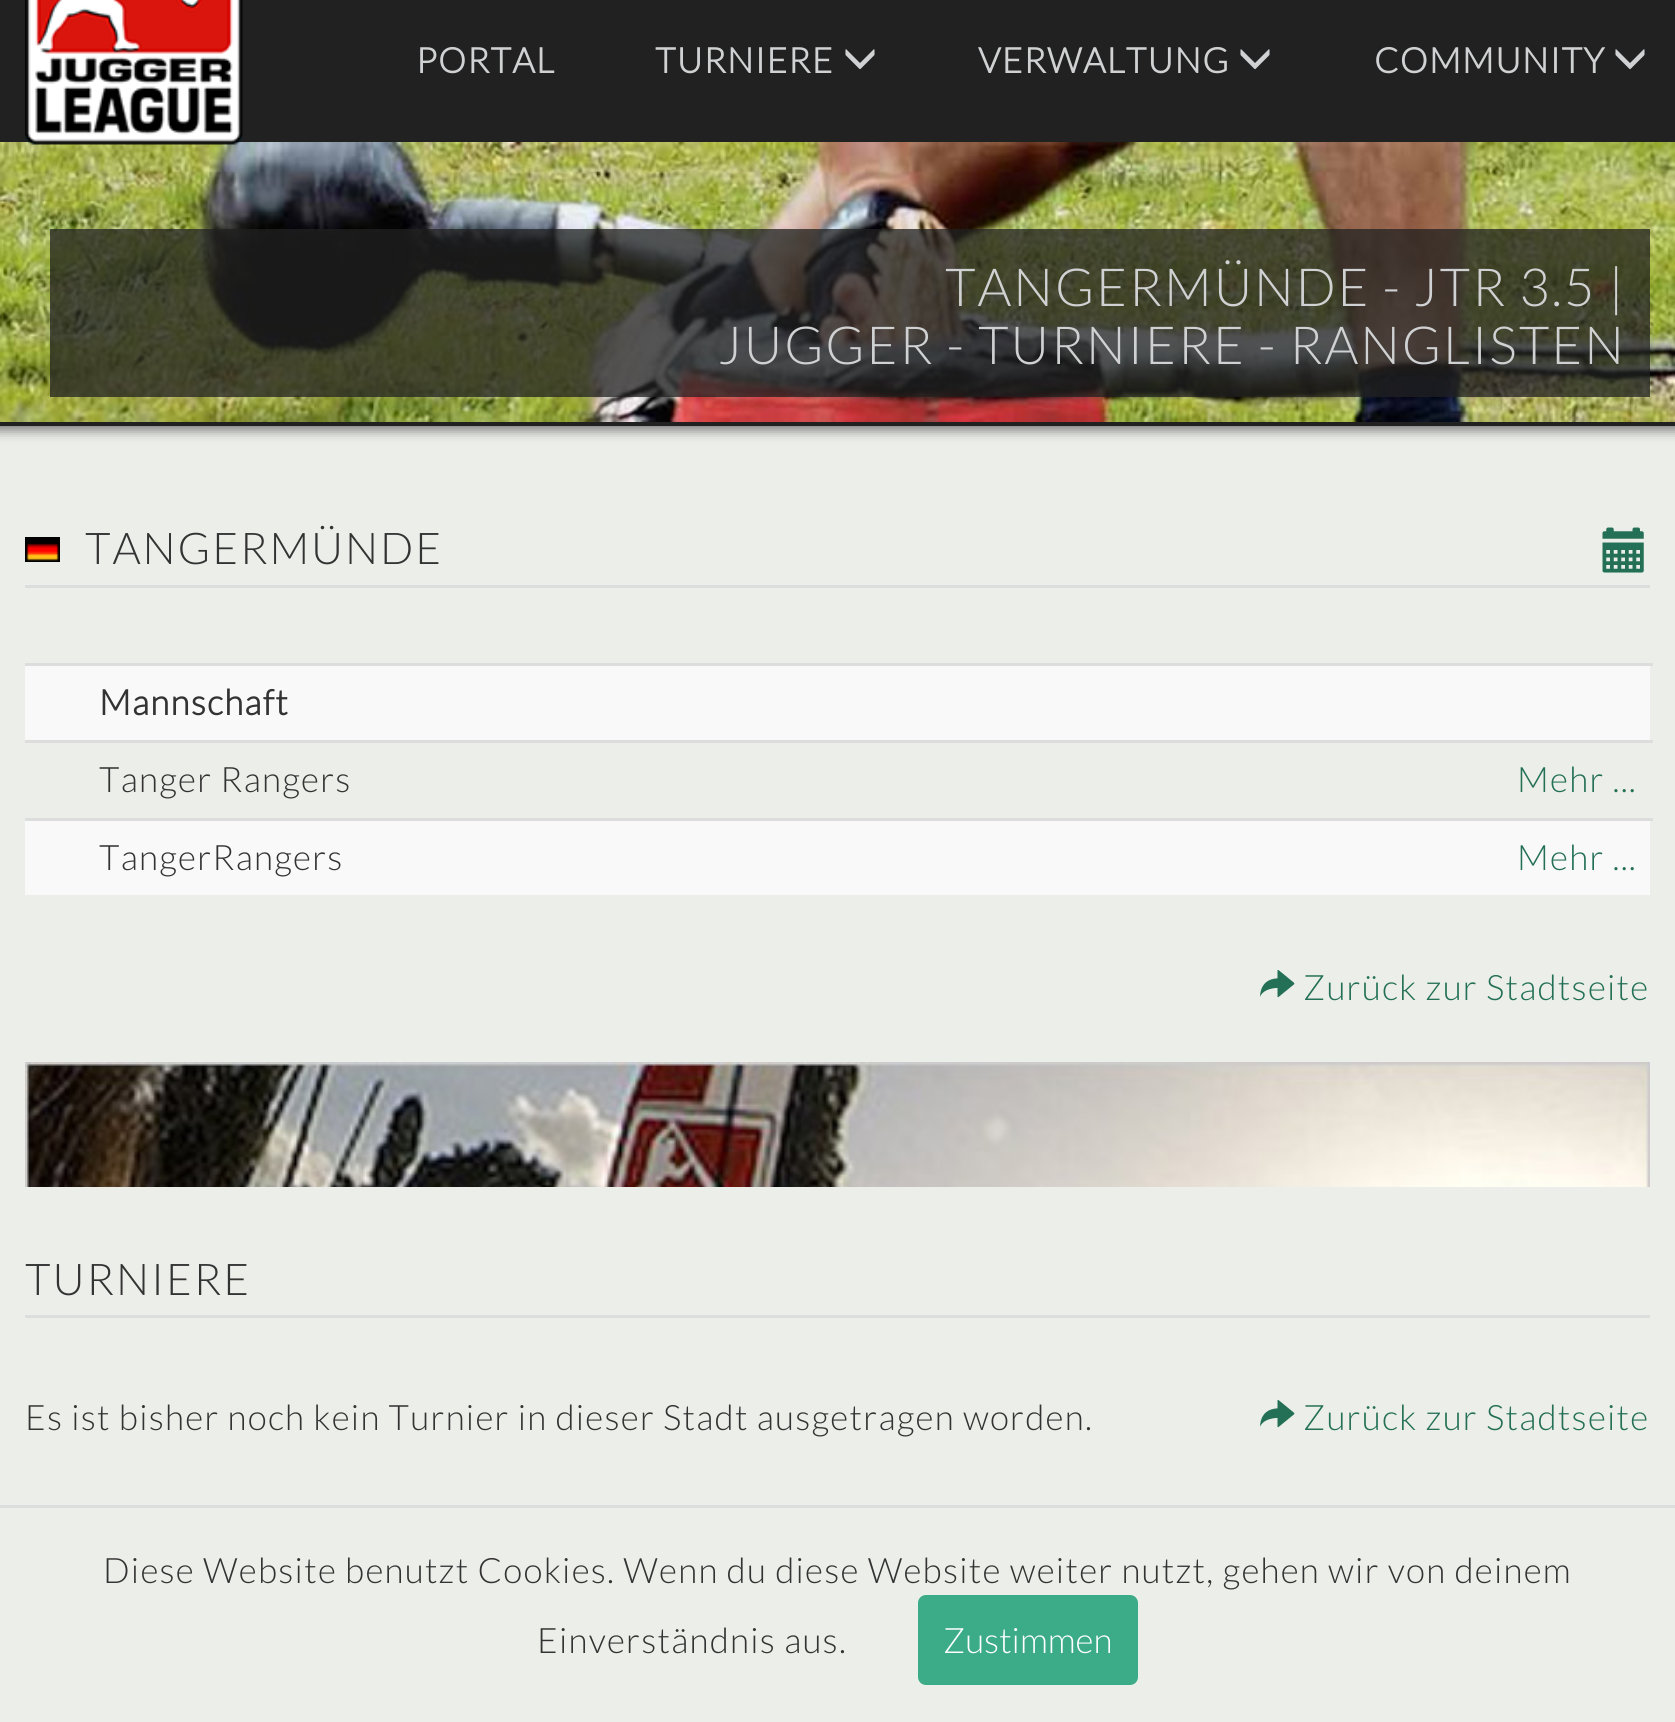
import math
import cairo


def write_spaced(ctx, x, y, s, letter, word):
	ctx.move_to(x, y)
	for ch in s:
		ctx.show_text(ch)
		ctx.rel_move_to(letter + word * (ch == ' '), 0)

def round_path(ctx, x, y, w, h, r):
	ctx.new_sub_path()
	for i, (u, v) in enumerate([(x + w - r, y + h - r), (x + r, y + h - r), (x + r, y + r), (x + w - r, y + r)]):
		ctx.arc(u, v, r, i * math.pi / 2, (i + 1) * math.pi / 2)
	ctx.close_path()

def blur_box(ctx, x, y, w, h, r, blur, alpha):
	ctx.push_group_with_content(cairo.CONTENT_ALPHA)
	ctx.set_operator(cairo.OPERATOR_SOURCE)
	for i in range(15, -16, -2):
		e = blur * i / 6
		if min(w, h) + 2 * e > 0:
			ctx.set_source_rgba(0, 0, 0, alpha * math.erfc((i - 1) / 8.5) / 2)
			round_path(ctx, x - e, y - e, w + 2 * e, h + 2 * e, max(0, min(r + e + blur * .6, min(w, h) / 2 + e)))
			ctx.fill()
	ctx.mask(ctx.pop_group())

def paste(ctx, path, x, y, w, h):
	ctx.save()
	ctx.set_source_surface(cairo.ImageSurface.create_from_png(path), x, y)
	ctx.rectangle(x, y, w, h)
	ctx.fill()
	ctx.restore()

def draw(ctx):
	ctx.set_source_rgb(0.925, 0.933, 0.914)
	ctx.paint()
	ctx.set_source_rgb(0, 0, 0)
	blur_box(ctx, -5, -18, 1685, 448, 0, 6, 0.5)
	ctx.set_source_rgb(0.129, 0.129, 0.129)
	ctx.rectangle(0, 0, 1675, 426)
	ctx.fill()
	paste(ctx, 'media/3.png', 0, 142, 1675, 280)
	paste(ctx, 'media/1.png', 25, 0, 218, 145)
	ctx.select_font_face('Lato', cairo.FONT_SLANT_NORMAL, cairo.FONT_WEIGHT_BOLD)
	ctx.set_font_size(35)
	ctx.set_source_rgb(0.816, 0.82, 0.824)
	write_spaced(ctx, 416, 73, 'PORTAL', 1.25, 0)
	write_spaced(ctx, 655, 73, 'TURNIERE', 1.25, 0)
	paste(ctx, 'media/2.png', 845, 49, 30, 21)
	write_spaced(ctx, 978, 73, 'VERWALTUNG', 1.25, 0)
	paste(ctx, 'media/2.png', 1240, 49, 30, 21)
	write_spaced(ctx, 1374, 73, 'COMMUNITY', 1.25, 0)
	paste(ctx, 'media/2.png', 1615, 49, 30, 21)
	ctx.set_source_rgba(0.129, 0.129, 0.129, 0.75)
	ctx.rectangle(50, 229, 1600, 168)
	ctx.fill()
	ctx.select_font_face('Lato Light')
	ctx.set_font_size(52.5)
	ctx.set_source_rgb(0.816, 0.82, 0.824)
	write_spaced(ctx, 945, 306, 'TANGERMÜNDE - JTR 3.5 |', 1.9, 0)
	write_spaced(ctx, 718, 364, 'JUGGER - TURNIERE - RANGLISTEN', 1.9, 0)
	ctx.set_source_rgb(0.867, 0.867, 0.867)
	ctx.rectangle(25, 585, 1625, 3)
	ctx.fill()
	paste(ctx, 'media/4.png', 25, 537, 35, 25)
	ctx.set_font_size(43.75)
	ctx.set_source_rgb(0.2, 0.2, 0.2)
	write_spaced(ctx, 85, 564, 'TANGERMÜNDE', 1.9, 0)
	paste(ctx, 'media/5.png', 1602, 527, 42, 46)
	ctx.set_source_rgb(0.976, 0.976, 0.976)
	ctx.rectangle(25, 666, 1625, 74)
	ctx.fill()
	ctx.set_source_rgb(0.867, 0.867, 0.867)
	ctx.rectangle(25, 663, 1628, 3)
	ctx.fill()
	ctx.select_font_face('Lato', cairo.FONT_SLANT_NORMAL, cairo.FONT_WEIGHT_BOLD)
	ctx.set_font_size(35)
	ctx.set_source_rgb(0.2, 0.2, 0.2)
	write_spaced(ctx, 99, 715, 'Mannschaft', 1.25, 0)
	ctx.select_font_face('Lato Light')
	write_spaced(ctx, 99, 792, 'Tanger Rangers', 1.25, 0)
	ctx.set_source_rgb(0.867, 0.867, 0.867)
	ctx.rectangle(25, 740, 1628, 3)
	ctx.fill()
	ctx.set_source_rgb(0.137, 0.439, 0.337)
	write_spaced(ctx, 1517, 792, 'Mehr ...', 1.25, 0)
	ctx.set_source_rgb(0.976, 0.976, 0.976)
	ctx.rectangle(25, 821, 1625, 74)
	ctx.fill()
	ctx.set_source_rgb(0.2, 0.2, 0.2)
	write_spaced(ctx, 99, 870, 'TangerRangers', 1.25, 0)
	ctx.set_source_rgb(0.867, 0.867, 0.867)
	ctx.rectangle(25, 818, 1628, 3)
	ctx.fill()
	ctx.set_source_rgb(0.137, 0.439, 0.337)
	write_spaced(ctx, 1517, 870, 'Mehr ...', 1.25, 0)
	paste(ctx, 'media/6.png', 1260, 970, 35, 28)
	write_spaced(ctx, 1303, 1000, 'Zurück zur Stadtseite', 1.25, 0)
	paste(ctx, 'media/7.png', 25, 1062, 1625, 125)
	ctx.set_source_rgb(0.867, 0.867, 0.867)
	ctx.rectangle(25, 1315, 1625, 3)
	ctx.fill()
	ctx.set_font_size(43.75)
	ctx.set_source_rgb(0.2, 0.2, 0.2)
	write_spaced(ctx, 25, 1295, 'TURNIERE', 1.9, 0)
	ctx.set_font_size(35)
	write_spaced(ctx, 25, 1430, 'Es ist bisher noch kein Turnier in dieser Stadt ausgetragen worden.', 1.25, 0)
	paste(ctx, 'media/6.png', 1260, 1400, 35, 28)
	ctx.set_source_rgb(0.137, 0.439, 0.337)
	write_spaced(ctx, 1303, 1430, 'Zurück zur Stadtseite', 1.25, 0)
	ctx.set_source_rgb(0.867, 0.867, 0.867)
	ctx.rectangle(0, 1505, 1675, 3)
	ctx.fill()
	ctx.set_source_rgb(0.2, 0.2, 0.2)
	write_spaced(ctx, 103, 1583, 'Diese Website benutzt Cookies. Wenn du diese Website weiter nutzt, gehen wir von deinem', 1.25, 0)
	write_spaced(ctx, 537, 1653, 'Einverständnis aus.', 1.25, 0)
	ctx.set_source_rgb(0.235, 0.671, 0.533)
	round_path(ctx, 918, 1595, 220, 90, 8)
	ctx.fill()
	ctx.set_source_rgb(1, 1, 1)
	ctx.move_to(943, 1653)
	ctx.show_text('Zustimmen')


surface = cairo.ImageSurface(cairo.FORMAT_RGB24, 1675, 1722)
ctx = cairo.Context(surface)
options = cairo.FontOptions()
options.set_hint_metrics(cairo.HINT_METRICS_OFF)
options.set_hint_style(cairo.HINT_STYLE_NONE)
ctx.set_font_options(options)
ctx.set_miter_limit(4)
draw(ctx)
surface.write_to_png('image.png')
